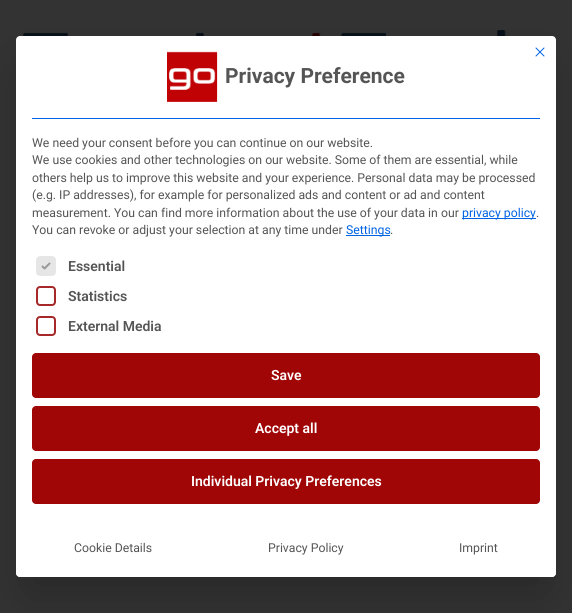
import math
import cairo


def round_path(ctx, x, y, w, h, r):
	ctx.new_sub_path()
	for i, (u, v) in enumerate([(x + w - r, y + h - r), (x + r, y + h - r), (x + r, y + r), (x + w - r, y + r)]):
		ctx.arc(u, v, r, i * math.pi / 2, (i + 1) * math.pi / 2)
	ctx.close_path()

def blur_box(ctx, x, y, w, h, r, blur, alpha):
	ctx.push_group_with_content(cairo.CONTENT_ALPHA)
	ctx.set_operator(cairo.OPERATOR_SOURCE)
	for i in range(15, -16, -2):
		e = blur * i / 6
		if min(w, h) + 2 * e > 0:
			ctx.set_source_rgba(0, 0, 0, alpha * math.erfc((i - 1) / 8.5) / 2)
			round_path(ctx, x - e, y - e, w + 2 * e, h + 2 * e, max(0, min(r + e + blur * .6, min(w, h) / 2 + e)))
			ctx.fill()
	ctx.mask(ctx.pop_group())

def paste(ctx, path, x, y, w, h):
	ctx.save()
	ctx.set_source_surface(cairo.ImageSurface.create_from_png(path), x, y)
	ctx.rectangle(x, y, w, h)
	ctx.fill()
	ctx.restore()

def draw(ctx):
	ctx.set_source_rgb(0.2, 0.2, 0.2)
	ctx.paint()
	paste(ctx, 'media/1.png', 23, 30, 483, 6)
	paste(ctx, 'media/4.png', 556, 195, 1, 91)
	ctx.set_source_rgb(0, 0, 0)
	blur_box(ctx, 28, 73, 516, 517, 0, 25, 0.25)
	ctx.set_source_rgb(1, 1, 1)
	round_path(ctx, 16, 36, 540, 541, 4)
	ctx.fill()
	ctx.new_path()
	ctx.move_to(536, 56)
	ctx.line_to(544, 48)
	ctx.move_to(536, 48)
	ctx.line_to(544, 56)
	ctx.set_source_rgb(0, 0.388, 0.89)
	ctx.set_line_width(1)
	ctx.set_line_cap(cairo.LINE_CAP_ROUND)
	ctx.set_line_join(cairo.LINE_JOIN_ROUND)
	ctx.stroke()
	ctx.rectangle(32, 118, 508, 1)
	ctx.fill()
	paste(ctx, 'media/2.png', 167, 51, 51, 51)
	ctx.select_font_face('Roboto', cairo.FONT_SLANT_NORMAL, cairo.FONT_WEIGHT_BOLD)
	ctx.set_font_size(21)
	ctx.set_source_rgb(0.333, 0.333, 0.333)
	ctx.move_to(225, 83)
	ctx.show_text('Privacy Preference')
	ctx.select_font_face('Roboto')
	ctx.set_font_size(12.25)
	for x, y, s in [
		(32, 147, 'We need your consent before you can continue on our website.'),
		(32, 164, 'We use cookies and other technologies on our website. Some of them are essential, while'),
		(32, 182, 'others help us to improve this website and your experience. Personal data may be processed'),
		(32, 199, '(e.g. IP addresses), for example for personalized ads and content or ad and content'),
		(32, 217, 'measurement. You can find more information about the use of your data in our'),
	]:
		ctx.move_to(x, y)
		ctx.show_text(s)
	ctx.set_source_rgb(0, 0.388, 0.89)
	ctx.rectangle(462, 218, 74, 1)
	ctx.fill()
	ctx.move_to(462, 217)
	ctx.show_text('privacy policy')
	ctx.set_source_rgb(0.333, 0.333, 0.333)
	ctx.move_to(536, 217)
	ctx.show_text('.')
	ctx.move_to(32, 234)
	ctx.show_text('You can revoke or adjust your selection at any time under')
	ctx.set_source_rgb(0, 0.388, 0.89)
	ctx.rectangle(346, 235, 44, 1)
	ctx.fill()
	ctx.move_to(346, 234)
	ctx.show_text('Settings')
	ctx.set_source_rgb(0.333, 0.333, 0.333)
	ctx.move_to(390, 234)
	ctx.show_text('.')
	ctx.set_source_rgb(0.902, 0.902, 0.902)
	round_path(ctx, 37, 257, 18, 18, 3)
	ctx.fill_preserve()
	ctx.set_line_width(2)
	ctx.set_line_cap(cairo.LINE_CAP_BUTT)
	ctx.set_line_join(cairo.LINE_JOIN_MITER)
	ctx.stroke()
	paste(ctx, 'media/3.png', 41, 262, 10, 8)
	ctx.select_font_face('Roboto SemiBold')
	ctx.set_font_size(14)
	ctx.set_source_rgb(0.333, 0.333, 0.333)
	ctx.move_to(68, 271)
	ctx.show_text('Essential')
	round_path(ctx, 37, 287, 18, 18, 3)
	ctx.set_source_rgb(0.655, 0.157, 0.157)
	ctx.stroke()
	ctx.set_source_rgb(0.333, 0.333, 0.333)
	ctx.move_to(68, 301)
	ctx.show_text('Statistics')
	round_path(ctx, 37, 317, 18, 18, 3)
	ctx.set_source_rgb(0.655, 0.157, 0.157)
	ctx.stroke()
	ctx.set_source_rgb(0.333, 0.333, 0.333)
	ctx.move_to(68, 331)
	ctx.show_text('External Media')
	ctx.set_source_rgb(0.627, 0.024, 0.024)
	round_path(ctx, 32, 353, 508, 45, 4)
	ctx.fill()
	ctx.set_source_rgb(1, 1, 1)
	ctx.move_to(271, 380)
	ctx.show_text('Save')
	ctx.set_source_rgb(0.627, 0.024, 0.024)
	round_path(ctx, 32, 406, 508, 45, 4)
	ctx.fill()
	ctx.set_source_rgb(1, 1, 1)
	ctx.move_to(255, 433)
	ctx.show_text('Accept all')
	ctx.set_source_rgb(0.627, 0.024, 0.024)
	round_path(ctx, 32, 459, 508, 45, 4)
	ctx.fill()
	ctx.set_source_rgb(1, 1, 1)
	ctx.move_to(191, 486)
	ctx.show_text('Individual Privacy Preferences')
	ctx.new_path()
	ctx.move_to(16, 520)
	ctx.line_to(556, 520)
	ctx.line_to(556, 573)
	ctx.curve_to(556, 575, 554, 577, 552, 577)
	ctx.line_to(20, 577)
	ctx.curve_to(18, 577, 16, 575, 16, 573)
	ctx.close_path()
	ctx.fill()
	ctx.select_font_face('Roboto')
	ctx.set_font_size(12.25)
	ctx.set_source_rgb(0.333, 0.333, 0.333)
	for x, y, s in [
		(74, 552, 'Cookie Details'),
		(268, 552, 'Privacy Policy'),
		(459, 552, 'Imprint'),
	]:
		ctx.move_to(x, y)
		ctx.show_text(s)


surface = cairo.ImageSurface(cairo.FORMAT_RGB24, 572, 613)
ctx = cairo.Context(surface)
options = cairo.FontOptions()
options.set_hint_metrics(cairo.HINT_METRICS_OFF)
options.set_hint_style(cairo.HINT_STYLE_NONE)
ctx.set_font_options(options)
ctx.set_miter_limit(4)
draw(ctx)
surface.write_to_png('image.png')
